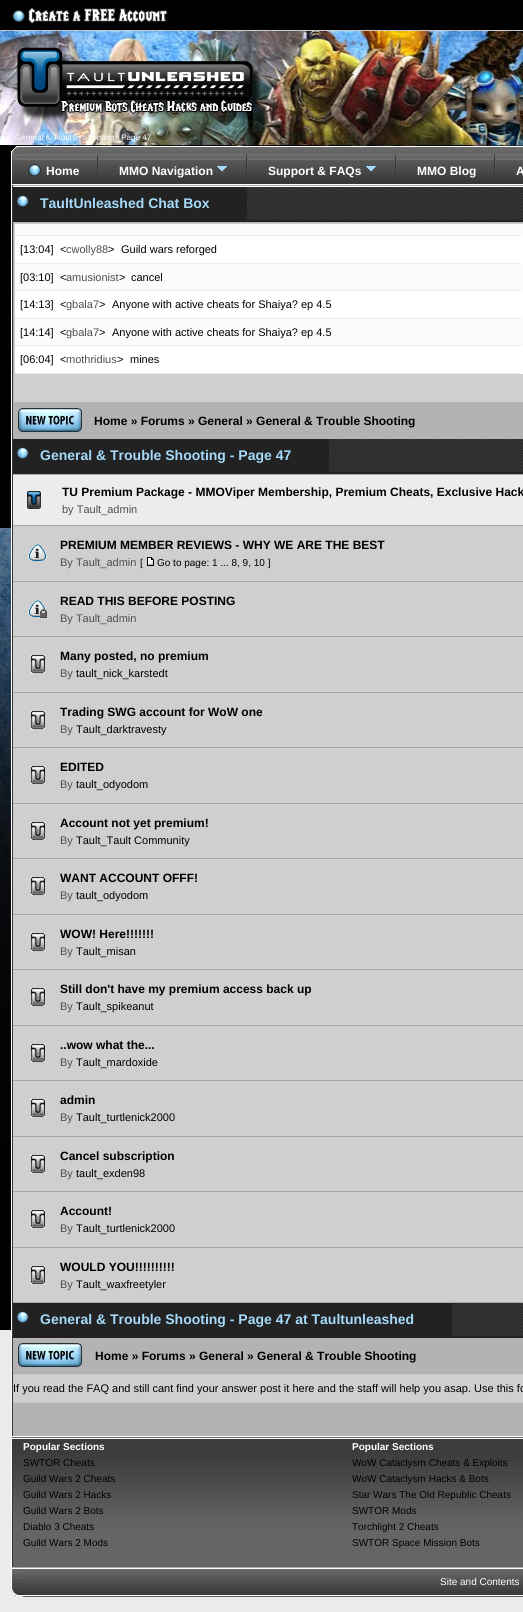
import math
import cairo


def paste(ctx, path, x, y, w, h):
	ctx.save()
	ctx.set_source_surface(cairo.ImageSurface.create_from_png(path), x, y)
	ctx.rectangle(x, y, w, h)
	ctx.fill()
	ctx.restore()

def draw(ctx):
	ctx.set_source_rgb(0.918, 0.918, 0.918)
	ctx.paint()
	paste(ctx, 'media/1.png', 0, 31, 523, 1299)
	ctx.set_source_rgb(0, 0, 0)
	ctx.rectangle(0, 0, 523, 30)
	ctx.fill()
	ctx.set_source_rgb(0.8, 0.8, 0.8)
	ctx.rectangle(0, 30, 523, 1)
	ctx.fill()
	paste(ctx, 'media/2.png', 12, 7, 156, 17)
	paste(ctx, 'media/3.png', 17, 31, 245, 90)
	ctx.select_font_face('Liberation Sans')
	ctx.set_font_size(8)
	ctx.set_source_rgb(1, 1, 1)
	ctx.move_to(15, 140)
	ctx.show_text('General & Trouble Shooting - Page 47')
	paste(ctx, 'media/4.png', 11, 146, 12, 41)
	paste(ctx, 'media/5.png', 23, 146, 500, 41)
	paste(ctx, 'media/6.png', 97, 154, 2, 26)
	paste(ctx, 'media/7.png', 28, 164, 13, 13)
	ctx.select_font_face('Liberation Sans', cairo.FONT_SLANT_NORMAL, cairo.FONT_WEIGHT_BOLD)
	ctx.set_font_size(12)
	ctx.move_to(46, 175)
	ctx.show_text('Home')
	paste(ctx, 'media/6.png', 246, 154, 2, 26)
	paste(ctx, 'media/8.png', 216, 166, 11, 6)
	ctx.move_to(119, 175)
	ctx.show_text('MMO Navigation')
	paste(ctx, 'media/6.png', 395, 154, 2, 26)
	paste(ctx, 'media/8.png', 365, 166, 11, 6)
	ctx.move_to(268, 175)
	ctx.show_text('Support & FAQs')
	paste(ctx, 'media/6.png', 494, 154, 2, 26)
	ctx.move_to(417, 175)
	ctx.show_text('MMO Blog')
	ctx.move_to(516, 175)
	ctx.show_text('A')
	paste(ctx, 'media/9.png', 11, 187, 2, 1249)
	ctx.set_source_rgb(0.702, 0.702, 0.702)
	ctx.rectangle(13, 222, 510, 1214)
	ctx.fill()
	ctx.set_source_rgb(0.133, 0.133, 0.133)
	ctx.rectangle(13, 220, 510, 2)
	ctx.rectangle(13, 187, 234, 33)
	ctx.fill()
	paste(ctx, 'media/10.png', 16, 195, 13, 12)
	ctx.set_font_size(14)
	ctx.set_source_rgb(0.647, 0.855, 0.98)
	ctx.move_to(40, 208)
	ctx.show_text('TaultUnleashed Chat Box')
	paste(ctx, 'media/11.png', 247, 187, 276, 33)
	ctx.set_source_rgb(0.812, 0.812, 0.812)
	ctx.rectangle(14, 223, 509, 179)
	ctx.fill()
	ctx.set_source_rgb(0.984, 0.984, 0.984)
	ctx.rectangle(15, 224, 508, 12)
	ctx.fill()
	ctx.new_path()
	ctx.move_to(15, 235.5)
	ctx.line_to(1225, 235.5)
	ctx.set_source_rgb(0.867, 0.867, 0.867)
	ctx.set_line_width(1)
	ctx.set_dash([1, 1])
	ctx.stroke()
	ctx.set_source_rgb(1, 1, 1)
	ctx.rectangle(15, 236, 508, 28)
	ctx.fill()
	ctx.new_path()
	ctx.move_to(15, 263.5)
	ctx.line_to(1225, 263.5)
	ctx.set_source_rgb(0.867, 0.867, 0.867)
	ctx.stroke()
	ctx.select_font_face('Liberation Sans')
	ctx.set_font_size(11)
	ctx.set_source_rgb(0, 0, 0)
	ctx.move_to(20, 253)
	ctx.show_text('[13:04]')
	ctx.move_to(60, 253)
	ctx.show_text('<')
	ctx.set_source_rgb(0.306, 0.306, 0.306)
	ctx.move_to(66, 253)
	ctx.show_text('cwolly88')
	ctx.set_source_rgb(0, 0, 0)
	ctx.move_to(108, 253)
	ctx.show_text('>')
	ctx.move_to(121, 253)
	ctx.show_text('Guild wars reforged')
	ctx.set_source_rgb(0.984, 0.984, 0.984)
	ctx.rectangle(15, 264, 508, 27)
	ctx.fill()
	ctx.new_path()
	ctx.move_to(15, 290.5)
	ctx.line_to(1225, 290.5)
	ctx.set_source_rgb(0.867, 0.867, 0.867)
	ctx.stroke()
	ctx.set_source_rgb(0, 0, 0)
	ctx.move_to(20, 281)
	ctx.show_text('[03:10]')
	ctx.move_to(60, 281)
	ctx.show_text('<')
	ctx.set_source_rgb(0.306, 0.306, 0.306)
	ctx.move_to(66, 281)
	ctx.show_text('amusionist')
	ctx.set_source_rgb(0, 0, 0)
	ctx.move_to(119, 281)
	ctx.show_text('>')
	ctx.move_to(131, 281)
	ctx.show_text('cancel')
	ctx.set_source_rgb(1, 1, 1)
	ctx.rectangle(15, 291, 508, 28)
	ctx.fill()
	ctx.new_path()
	ctx.move_to(15, 318.5)
	ctx.line_to(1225, 318.5)
	ctx.set_source_rgb(0.867, 0.867, 0.867)
	ctx.stroke()
	ctx.set_source_rgb(0, 0, 0)
	ctx.move_to(20, 308)
	ctx.show_text('[14:13]')
	ctx.move_to(60, 308)
	ctx.show_text('<')
	ctx.set_source_rgb(0.306, 0.306, 0.306)
	ctx.move_to(66, 308)
	ctx.show_text('gbala7')
	ctx.set_source_rgb(0, 0, 0)
	ctx.move_to(99, 308)
	ctx.show_text('>')
	ctx.move_to(112, 308)
	ctx.show_text('Anyone with active cheats for Shaiya? ep 4.5')
	ctx.set_source_rgb(0.984, 0.984, 0.984)
	ctx.rectangle(15, 319, 508, 27)
	ctx.fill()
	ctx.new_path()
	ctx.move_to(15, 345.5)
	ctx.line_to(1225, 345.5)
	ctx.set_source_rgb(0.867, 0.867, 0.867)
	ctx.stroke()
	ctx.set_source_rgb(0, 0, 0)
	ctx.move_to(20, 336)
	ctx.show_text('[14:14]')
	ctx.move_to(60, 336)
	ctx.show_text('<')
	ctx.set_source_rgb(0.306, 0.306, 0.306)
	ctx.move_to(66, 336)
	ctx.show_text('gbala7')
	ctx.set_source_rgb(0, 0, 0)
	ctx.move_to(99, 336)
	ctx.show_text('>')
	ctx.move_to(112, 336)
	ctx.show_text('Anyone with active cheats for Shaiya? ep 4.5')
	ctx.set_source_rgb(1, 1, 1)
	ctx.rectangle(15, 346, 508, 28)
	ctx.fill()
	ctx.new_path()
	ctx.move_to(15, 373.5)
	ctx.line_to(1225, 373.5)
	ctx.set_source_rgb(0.867, 0.867, 0.867)
	ctx.stroke()
	ctx.set_source_rgb(0, 0, 0)
	ctx.move_to(20, 363)
	ctx.show_text('[06:04]')
	ctx.move_to(60, 363)
	ctx.show_text('<')
	ctx.set_source_rgb(0.306, 0.306, 0.306)
	ctx.move_to(66, 363)
	ctx.show_text('mothridius')
	ctx.set_source_rgb(0, 0, 0)
	ctx.move_to(117, 363)
	ctx.show_text('>')
	ctx.move_to(130, 363)
	ctx.show_text('mines')
	paste(ctx, 'media/12.png', 18, 408, 64, 24)
	ctx.select_font_face('Liberation Sans', cairo.FONT_SLANT_NORMAL, cairo.FONT_WEIGHT_BOLD)
	ctx.set_font_size(12)
	ctx.move_to(94, 425)
	ctx.show_text('Home » Forums » General » General & Trouble Shooting')
	ctx.set_source_rgb(0.133, 0.133, 0.133)
	ctx.rectangle(13, 472, 510, 2)
	ctx.fill()
	ctx.rectangle(13, 439, 316, 33)
	ctx.fill()
	paste(ctx, 'media/10.png', 16, 447, 13, 12)
	ctx.set_font_size(14)
	ctx.set_source_rgb(0.647, 0.855, 0.98)
	ctx.move_to(40, 460)
	ctx.show_text('General & Trouble Shooting - Page 47')
	paste(ctx, 'media/13.png', 329, 439, 194, 33)
	ctx.set_source_rgb(0.812, 0.812, 0.812)
	ctx.rectangle(13, 526, 510, 776)
	ctx.fill()
	ctx.set_source_rgb(0.659, 0.659, 0.659)
	ctx.rectangle(13, 474, 510, 1)
	ctx.fill()
	ctx.set_source_rgb(0.922, 0.922, 0.922)
	ctx.rectangle(13, 475, 510, 50)
	ctx.fill()
	ctx.set_source_rgb(0.659, 0.659, 0.659)
	ctx.rectangle(13, 525, 510, 1)
	ctx.fill()
	paste(ctx, 'media/14.png', 27, 491, 14, 18)
	ctx.set_font_size(12)
	ctx.set_source_rgb(0, 0, 0)
	ctx.move_to(62, 496)
	ctx.show_text('TU Premium Package - MMOViper Membership, Premium Cheats, Exclusive Hack')
	ctx.select_font_face('Liberation Sans')
	ctx.set_font_size(11)
	ctx.set_source_rgb(0.306, 0.306, 0.306)
	ctx.move_to(62, 513)
	ctx.show_text('by Tault_admin')
	ctx.select_font_face('Liberation Sans', cairo.FONT_SLANT_NORMAL, cairo.FONT_WEIGHT_BOLD)
	ctx.set_font_size(12)
	ctx.set_source_rgb(0, 0, 0)
	ctx.move_to(60, 549)
	ctx.show_text('PREMIUM MEMBER REVIEWS - WHY WE ARE THE BEST')
	ctx.select_font_face('Liberation Sans')
	ctx.set_font_size(11)
	ctx.set_source_rgb(0.306, 0.306, 0.306)
	ctx.move_to(60, 566)
	ctx.show_text('By Tault_admin')
	ctx.set_font_size(10)
	ctx.set_source_rgb(0, 0, 0)
	ctx.move_to(140, 566)
	ctx.show_text('[')
	paste(ctx, 'media/15.png', 147, 557, 7, 9)
	ctx.move_to(157, 566)
	ctx.show_text('Go to page: 1 ... 8, 9, 10 ]')
	ctx.set_source_rgb(0.659, 0.659, 0.659)
	ctx.rectangle(13, 581, 510, 1)
	ctx.fill()
	paste(ctx, 'media/16.png', 28, 544, 19, 17)
	ctx.select_font_face('Liberation Sans', cairo.FONT_SLANT_NORMAL, cairo.FONT_WEIGHT_BOLD)
	ctx.set_font_size(12)
	ctx.set_source_rgb(0, 0, 0)
	ctx.move_to(60, 605)
	ctx.show_text('READ THIS BEFORE POSTING')
	ctx.select_font_face('Liberation Sans')
	ctx.set_font_size(11)
	ctx.set_source_rgb(0.306, 0.306, 0.306)
	ctx.move_to(60, 622)
	ctx.show_text('By Tault_admin')
	ctx.set_source_rgb(0.659, 0.659, 0.659)
	ctx.rectangle(13, 636, 510, 1)
	ctx.fill()
	paste(ctx, 'media/17.png', 28, 600, 19, 18)
	ctx.select_font_face('Liberation Sans', cairo.FONT_SLANT_NORMAL, cairo.FONT_WEIGHT_BOLD)
	ctx.set_font_size(12)
	ctx.set_source_rgb(0, 0, 0)
	ctx.move_to(60, 660)
	ctx.show_text('Many posted, no premium')
	ctx.select_font_face('Liberation Sans')
	ctx.set_font_size(11)
	ctx.set_source_rgb(0.306, 0.306, 0.306)
	ctx.move_to(60, 677)
	ctx.show_text('By')
	ctx.set_source_rgb(0, 0, 0)
	ctx.move_to(76, 677)
	ctx.show_text('tault_nick_karstedt')
	ctx.set_source_rgb(0.659, 0.659, 0.659)
	ctx.rectangle(13, 692, 510, 1)
	ctx.fill()
	paste(ctx, 'media/18.png', 31, 655, 14, 18)
	ctx.select_font_face('Liberation Sans', cairo.FONT_SLANT_NORMAL, cairo.FONT_WEIGHT_BOLD)
	ctx.set_font_size(12)
	ctx.set_source_rgb(0, 0, 0)
	ctx.move_to(60, 716)
	ctx.show_text('Trading SWG account for WoW one')
	ctx.select_font_face('Liberation Sans')
	ctx.set_font_size(11)
	ctx.set_source_rgb(0.306, 0.306, 0.306)
	ctx.move_to(60, 733)
	ctx.show_text('By')
	ctx.set_source_rgb(0, 0, 0)
	ctx.move_to(76, 733)
	ctx.show_text('Tault_darktravesty')
	ctx.set_source_rgb(0.659, 0.659, 0.659)
	ctx.rectangle(13, 747, 510, 1)
	ctx.fill()
	paste(ctx, 'media/18.png', 31, 711, 14, 18)
	ctx.select_font_face('Liberation Sans', cairo.FONT_SLANT_NORMAL, cairo.FONT_WEIGHT_BOLD)
	ctx.set_font_size(12)
	ctx.set_source_rgb(0, 0, 0)
	ctx.move_to(60, 771)
	ctx.show_text('EDITED')
	ctx.select_font_face('Liberation Sans')
	ctx.set_font_size(11)
	ctx.set_source_rgb(0.306, 0.306, 0.306)
	ctx.move_to(60, 788)
	ctx.show_text('By')
	ctx.set_source_rgb(0, 0, 0)
	ctx.move_to(76, 788)
	ctx.show_text('tault_odyodom')
	ctx.set_source_rgb(0.659, 0.659, 0.659)
	ctx.rectangle(13, 803, 510, 1)
	ctx.fill()
	paste(ctx, 'media/18.png', 31, 766, 14, 18)
	ctx.select_font_face('Liberation Sans', cairo.FONT_SLANT_NORMAL, cairo.FONT_WEIGHT_BOLD)
	ctx.set_font_size(12)
	ctx.set_source_rgb(0, 0, 0)
	ctx.move_to(60, 827)
	ctx.show_text('Account not yet premium!')
	ctx.select_font_face('Liberation Sans')
	ctx.set_font_size(11)
	ctx.set_source_rgb(0.306, 0.306, 0.306)
	ctx.move_to(60, 844)
	ctx.show_text('By')
	ctx.set_source_rgb(0, 0, 0)
	ctx.move_to(76, 844)
	ctx.show_text('Tault_Tault Community')
	ctx.set_source_rgb(0.659, 0.659, 0.659)
	ctx.rectangle(13, 858, 510, 1)
	ctx.fill()
	paste(ctx, 'media/18.png', 31, 822, 14, 18)
	ctx.select_font_face('Liberation Sans', cairo.FONT_SLANT_NORMAL, cairo.FONT_WEIGHT_BOLD)
	ctx.set_font_size(12)
	ctx.set_source_rgb(0, 0, 0)
	ctx.move_to(60, 882)
	ctx.show_text('WANT ACCOUNT OFFF!')
	ctx.select_font_face('Liberation Sans')
	ctx.set_font_size(11)
	ctx.set_source_rgb(0.306, 0.306, 0.306)
	ctx.move_to(60, 899)
	ctx.show_text('By')
	ctx.set_source_rgb(0, 0, 0)
	ctx.move_to(76, 899)
	ctx.show_text('tault_odyodom')
	ctx.set_source_rgb(0.659, 0.659, 0.659)
	ctx.rectangle(13, 914, 510, 1)
	ctx.fill()
	paste(ctx, 'media/18.png', 31, 877, 14, 18)
	ctx.select_font_face('Liberation Sans', cairo.FONT_SLANT_NORMAL, cairo.FONT_WEIGHT_BOLD)
	ctx.set_font_size(12)
	ctx.set_source_rgb(0, 0, 0)
	ctx.move_to(60, 938)
	ctx.show_text('WOW! Here!!!!!!!')
	ctx.select_font_face('Liberation Sans')
	ctx.set_font_size(11)
	ctx.set_source_rgb(0.306, 0.306, 0.306)
	ctx.move_to(60, 955)
	ctx.show_text('By')
	ctx.set_source_rgb(0, 0, 0)
	ctx.move_to(76, 955)
	ctx.show_text('Tault_misan')
	ctx.set_source_rgb(0.659, 0.659, 0.659)
	ctx.rectangle(13, 969, 510, 1)
	ctx.fill()
	paste(ctx, 'media/18.png', 31, 933, 14, 18)
	ctx.select_font_face('Liberation Sans', cairo.FONT_SLANT_NORMAL, cairo.FONT_WEIGHT_BOLD)
	ctx.set_font_size(12)
	ctx.set_source_rgb(0, 0, 0)
	ctx.move_to(60, 993)
	ctx.show_text('Still don\'t have my premium access back up')
	ctx.select_font_face('Liberation Sans')
	ctx.set_font_size(11)
	ctx.set_source_rgb(0.306, 0.306, 0.306)
	ctx.move_to(60, 1010)
	ctx.show_text('By')
	ctx.set_source_rgb(0, 0, 0)
	ctx.move_to(76, 1010)
	ctx.show_text('Tault_spikeanut')
	ctx.set_source_rgb(0.659, 0.659, 0.659)
	ctx.rectangle(13, 1025, 510, 1)
	ctx.fill()
	paste(ctx, 'media/18.png', 31, 988, 14, 18)
	ctx.select_font_face('Liberation Sans', cairo.FONT_SLANT_NORMAL, cairo.FONT_WEIGHT_BOLD)
	ctx.set_font_size(12)
	ctx.set_source_rgb(0, 0, 0)
	ctx.move_to(60, 1049)
	ctx.show_text('..wow what the...')
	ctx.select_font_face('Liberation Sans')
	ctx.set_font_size(11)
	ctx.set_source_rgb(0.306, 0.306, 0.306)
	ctx.move_to(60, 1066)
	ctx.show_text('By')
	ctx.set_source_rgb(0, 0, 0)
	ctx.move_to(76, 1066)
	ctx.show_text('Tault_mardoxide')
	ctx.set_source_rgb(0.659, 0.659, 0.659)
	ctx.rectangle(13, 1080, 510, 1)
	ctx.fill()
	paste(ctx, 'media/18.png', 31, 1044, 14, 18)
	ctx.select_font_face('Liberation Sans', cairo.FONT_SLANT_NORMAL, cairo.FONT_WEIGHT_BOLD)
	ctx.set_font_size(12)
	ctx.set_source_rgb(0, 0, 0)
	ctx.move_to(60, 1104)
	ctx.show_text('admin')
	ctx.select_font_face('Liberation Sans')
	ctx.set_font_size(11)
	ctx.set_source_rgb(0.306, 0.306, 0.306)
	ctx.move_to(60, 1121)
	ctx.show_text('By')
	ctx.set_source_rgb(0, 0, 0)
	ctx.move_to(76, 1121)
	ctx.show_text('Tault_turtlenick2000')
	ctx.set_source_rgb(0.659, 0.659, 0.659)
	ctx.rectangle(13, 1136, 510, 1)
	ctx.fill()
	paste(ctx, 'media/18.png', 31, 1099, 14, 18)
	ctx.select_font_face('Liberation Sans', cairo.FONT_SLANT_NORMAL, cairo.FONT_WEIGHT_BOLD)
	ctx.set_font_size(12)
	ctx.set_source_rgb(0, 0, 0)
	ctx.move_to(60, 1160)
	ctx.show_text('Cancel subscription')
	ctx.select_font_face('Liberation Sans')
	ctx.set_font_size(11)
	ctx.set_source_rgb(0.306, 0.306, 0.306)
	ctx.move_to(60, 1177)
	ctx.show_text('By')
	ctx.set_source_rgb(0, 0, 0)
	ctx.move_to(76, 1177)
	ctx.show_text('tault_exden98')
	ctx.set_source_rgb(0.659, 0.659, 0.659)
	ctx.rectangle(13, 1191, 510, 1)
	ctx.fill()
	paste(ctx, 'media/18.png', 31, 1155, 14, 18)
	ctx.select_font_face('Liberation Sans', cairo.FONT_SLANT_NORMAL, cairo.FONT_WEIGHT_BOLD)
	ctx.set_font_size(12)
	ctx.set_source_rgb(0, 0, 0)
	ctx.move_to(60, 1215)
	ctx.show_text('Account!')
	ctx.select_font_face('Liberation Sans')
	ctx.set_font_size(11)
	ctx.set_source_rgb(0.306, 0.306, 0.306)
	ctx.move_to(60, 1232)
	ctx.show_text('By')
	ctx.set_source_rgb(0, 0, 0)
	ctx.move_to(76, 1232)
	ctx.show_text('Tault_turtlenick2000')
	ctx.set_source_rgb(0.659, 0.659, 0.659)
	ctx.rectangle(13, 1247, 510, 1)
	ctx.fill()
	paste(ctx, 'media/18.png', 31, 1210, 14, 18)
	ctx.select_font_face('Liberation Sans', cairo.FONT_SLANT_NORMAL, cairo.FONT_WEIGHT_BOLD)
	ctx.set_font_size(12)
	ctx.set_source_rgb(0, 0, 0)
	ctx.move_to(60, 1271)
	ctx.show_text('WOULD YOU!!!!!!!!!!')
	ctx.select_font_face('Liberation Sans')
	ctx.set_font_size(11)
	ctx.set_source_rgb(0.306, 0.306, 0.306)
	ctx.move_to(60, 1288)
	ctx.show_text('By')
	ctx.set_source_rgb(0, 0, 0)
	ctx.move_to(76, 1288)
	ctx.show_text('Tault_waxfreetyler')
	ctx.set_source_rgb(0.659, 0.659, 0.659)
	ctx.rectangle(13, 1302, 510, 1)
	ctx.fill()
	paste(ctx, 'media/18.png', 31, 1266, 14, 18)
	ctx.set_source_rgb(0.133, 0.133, 0.133)
	ctx.rectangle(13, 1336, 510, 2)
	ctx.fill()
	ctx.rectangle(13, 1303, 439, 33)
	ctx.fill()
	paste(ctx, 'media/10.png', 16, 1311, 13, 12)
	ctx.select_font_face('Liberation Sans', cairo.FONT_SLANT_NORMAL, cairo.FONT_WEIGHT_BOLD)
	ctx.set_font_size(14)
	ctx.set_source_rgb(0.647, 0.855, 0.98)
	ctx.move_to(40, 1324)
	ctx.show_text('General & Trouble Shooting - Page 47 at Taultunleashed')
	paste(ctx, 'media/19.png', 452, 1303, 71, 33)
	paste(ctx, 'media/12.png', 18, 1343, 64, 24)
	ctx.set_font_size(12)
	ctx.set_source_rgb(0, 0, 0)
	ctx.move_to(95, 1360)
	ctx.show_text('Home » Forums » General » General & Trouble Shooting')
	ctx.set_source_rgb(0.812, 0.812, 0.812)
	ctx.rectangle(13, 1375, 510, 27)
	ctx.fill()
	ctx.set_source_rgb(0.765, 0.769, 0.773)
	ctx.rectangle(13, 1374, 510, 1)
	ctx.rectangle(13, 1402, 510, 1)
	ctx.fill()
	ctx.select_font_face('Liberation Sans')
	ctx.set_font_size(11)
	ctx.set_source_rgb(0, 0, 0)
	ctx.move_to(13, 1392)
	ctx.show_text('If you read the FAQ and still cant find your answer post it here and the staff will help you asap. Use this fo')
	paste(ctx, 'media/20.png', 11, 1436, 12, 131)
	paste(ctx, 'media/21.png', 23, 1437, 329, 130)
	ctx.set_source_rgb(1, 1, 1)
	ctx.rectangle(23, 1436, 500, 1)
	ctx.fill()
	ctx.rectangle(23, 1438, 329, 1)
	ctx.fill()
	ctx.select_font_face('Liberation Sans', cairo.FONT_SLANT_NORMAL, cairo.FONT_WEIGHT_BOLD)
	ctx.set_font_size(10)
	ctx.move_to(23, 1450)
	ctx.show_text('Popular Sections')
	ctx.select_font_face('Liberation Sans')
	ctx.set_source_rgb(0, 0, 0)
	for x, y, s in [
		(23, 1466, 'SWTOR Cheats'),
		(23, 1482, 'Guild Wars 2 Cheats'),
		(23, 1498, 'Guild Wars 2 Hacks'),
		(23, 1514, 'Guild Wars 2 Bots'),
		(23, 1530, 'Diablo 3 Cheats'),
		(23, 1546, 'Guild Wars 2 Mods'),
	]:
		ctx.move_to(x, y)
		ctx.show_text(s)
	paste(ctx, 'media/22.png', 352, 1437, 171, 130)
	ctx.set_source_rgb(1, 1, 1)
	ctx.rectangle(352, 1438, 171, 1)
	ctx.fill()
	ctx.select_font_face('Liberation Sans', cairo.FONT_SLANT_NORMAL, cairo.FONT_WEIGHT_BOLD)
	ctx.move_to(352, 1450)
	ctx.show_text('Popular Sections')
	ctx.select_font_face('Liberation Sans')
	ctx.set_source_rgb(0, 0, 0)
	for x, y, s in [
		(352, 1466, 'WoW Cataclysm Cheats & Exploits'),
		(352, 1482, 'WoW Cataclysm Hacks & Bots'),
		(352, 1498, 'Star Wars The Old Republic Cheats'),
		(352, 1514, 'SWTOR Mods'),
		(352, 1530, 'Torchlight 2 Cheats'),
		(352, 1546, 'SWTOR Space Mission Bots'),
	]:
		ctx.move_to(x, y)
		ctx.show_text(s)
	paste(ctx, 'media/23.png', 11, 1567, 12, 29)
	paste(ctx, 'media/24.png', 23, 1567, 500, 30)
	ctx.set_source_rgb(1, 1, 1)
	ctx.move_to(440, 1585)
	ctx.show_text('Site and Contents')


surface = cairo.ImageSurface(cairo.FORMAT_RGB24, 523, 1612)
ctx = cairo.Context(surface)
options = cairo.FontOptions()
options.set_hint_metrics(cairo.HINT_METRICS_OFF)
options.set_hint_style(cairo.HINT_STYLE_NONE)
ctx.set_font_options(options)
ctx.set_miter_limit(4)
draw(ctx)
surface.write_to_png('image.png')
